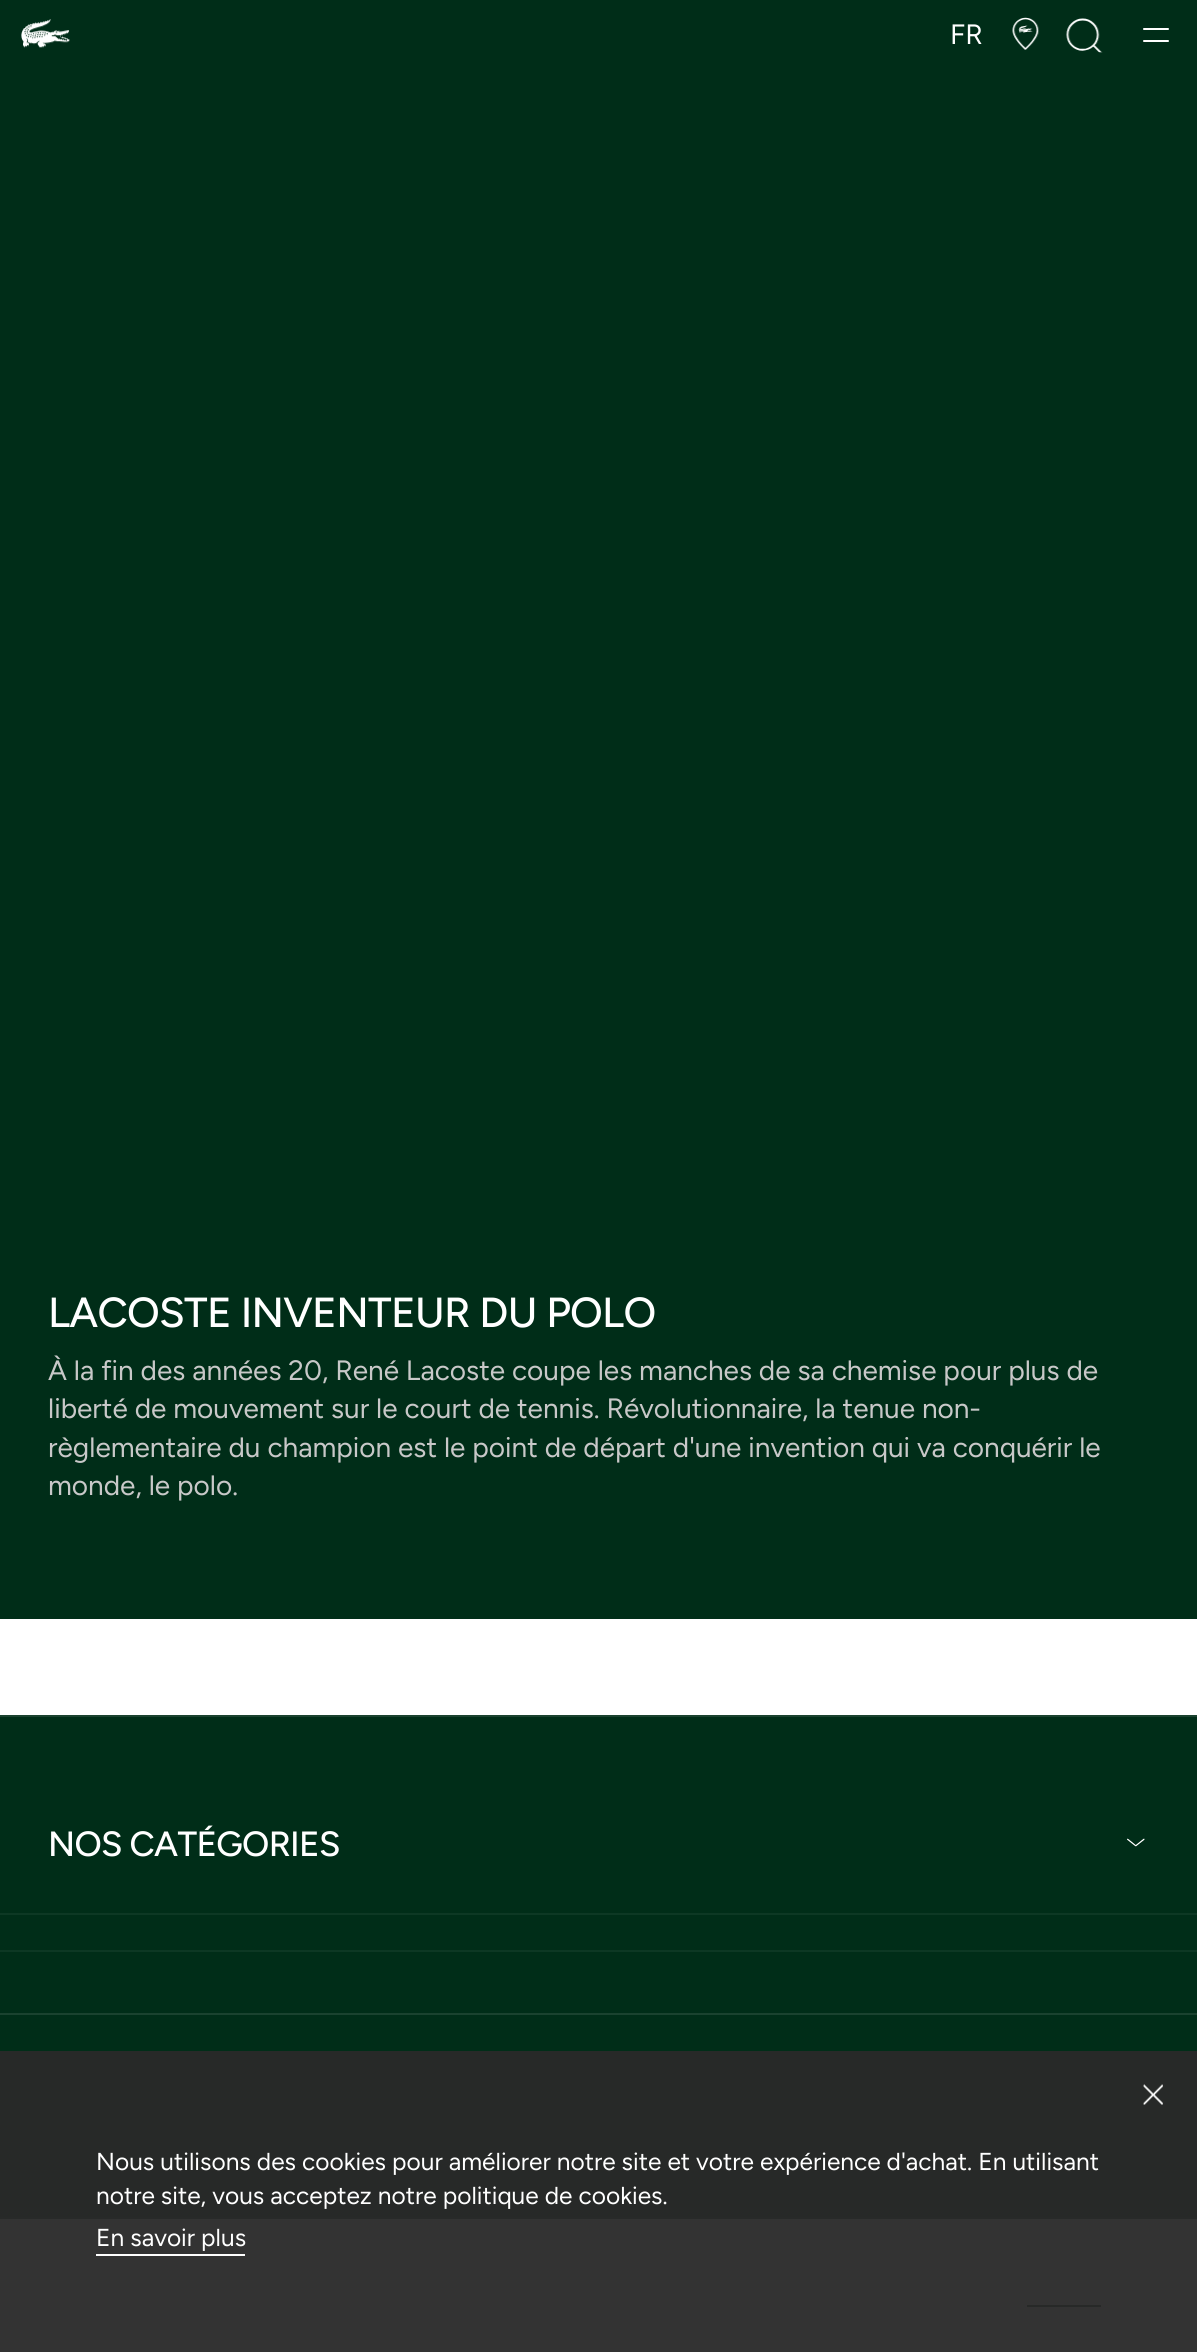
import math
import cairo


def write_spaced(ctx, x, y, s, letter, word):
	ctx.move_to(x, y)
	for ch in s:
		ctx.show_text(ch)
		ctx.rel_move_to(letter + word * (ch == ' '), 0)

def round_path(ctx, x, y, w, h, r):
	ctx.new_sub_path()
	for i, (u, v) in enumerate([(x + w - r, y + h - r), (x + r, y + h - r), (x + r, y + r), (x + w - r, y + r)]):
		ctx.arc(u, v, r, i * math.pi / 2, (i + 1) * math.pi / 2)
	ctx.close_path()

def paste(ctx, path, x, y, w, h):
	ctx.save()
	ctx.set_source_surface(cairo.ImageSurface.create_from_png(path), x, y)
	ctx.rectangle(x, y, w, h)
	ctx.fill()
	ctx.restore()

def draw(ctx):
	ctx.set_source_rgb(1, 1, 1)
	ctx.paint()
	ctx.set_source_rgb(0, 0.176, 0.094)
	ctx.rectangle(0, 0, 1197, 1619)
	ctx.fill()
	paste(ctx, 'media/1.png', 21, 19, 49, 29)
	ctx.select_font_face('Figtree')
	ctx.set_font_size(28)
	ctx.set_source_rgb(1, 1, 1)
	ctx.move_to(950, 44)
	ctx.show_text('FR')
	paste(ctx, 'media/2.png', 1012, 17, 27, 33)
	paste(ctx, 'media/3.png', 1066, 18, 37, 35)
	round_path(ctx, 1143, 28, 26, 2, 1)
	ctx.fill()
	round_path(ctx, 1143, 40, 26, 2, 1)
	ctx.fill()
	ctx.select_font_face('Figtree Medium')
	ctx.set_font_size(42)
	write_spaced(ctx, 48, 1327, 'LACOSTE INVENTEUR DU POLO', -0.7, 0)
	ctx.select_font_face('Figtree')
	ctx.set_font_size(28)
	ctx.set_source_rgb(0.784, 0.784, 0.784)
	for x, y, s in [
		(48, 1380, 'À la fin des années 20, René Lacoste coupe les manches de sa chemise pour plus de'),
		(48, 1418, 'liberté de mouvement sur le court de tennis. Révolutionnaire, la tenue non-'),
		(48, 1457, 'règlementaire du champion est le point de départ d\'une invention qui va conquérir le'),
		(48, 1495, 'monde, le polo.'),
	]:
		ctx.move_to(x, y)
		ctx.show_text(s)
	ctx.set_source_rgb(0, 0.176, 0.094)
	ctx.rectangle(0, 1717, 1197, 500)
	ctx.fill()
	ctx.set_source_rgb(0.102, 0.259, 0.184)
	ctx.rectangle(0, 1715, 1197, 2)
	ctx.rectangle(0, 2013, 1197, 2)
	ctx.fill()
	ctx.select_font_face('Figtree Medium')
	ctx.set_font_size(35)
	ctx.set_source_rgb(1, 1, 1)
	write_spaced(ctx, 48, 1856, 'NOS CATÉGORIES', -0.7, 0)
	paste(ctx, 'media/4.png', 1127, 1838, 18, 9)
	ctx.set_source_rgb(0.051, 0.22, 0.141)
	ctx.rectangle(0, 1913, 1197, 2)
	ctx.rectangle(0, 1950, 1197, 2)
	ctx.fill()
	ctx.set_source_rgb(0.102, 0.259, 0.184)
	ctx.rectangle(0, 2217, 1197, 2)
	ctx.fill()
	ctx.set_source_rgb(0, 0.176, 0.094)
	ctx.rectangle(1027, 2305, 74, 2)
	ctx.fill()
	ctx.set_source_rgba(0.161, 0.161, 0.161, 0.95)
	ctx.rectangle(0, 2051, 1197, 301)
	ctx.fill()
	paste(ctx, 'media/5.png', 1143, 2084, 20, 21)
	ctx.select_font_face('Figtree')
	ctx.set_font_size(24.5)
	ctx.set_source_rgb(1, 1, 1)
	for x, y, s in [
		(96, 2170, 'Nous utilisons des cookies pour améliorer notre site et votre expérience d\'achat. En utilisant'),
		(96, 2204, 'notre site, vous acceptez notre politique de cookies.'),
		(96, 2246, 'En savoir plus'),
	]:
		ctx.move_to(x, y)
		ctx.show_text(s)
	ctx.rectangle(96, 2254, 149, 2)
	ctx.fill()


surface = cairo.ImageSurface(cairo.FORMAT_RGB24, 1197, 2352)
ctx = cairo.Context(surface)
options = cairo.FontOptions()
options.set_hint_metrics(cairo.HINT_METRICS_OFF)
options.set_hint_style(cairo.HINT_STYLE_NONE)
ctx.set_font_options(options)
ctx.set_miter_limit(4)
draw(ctx)
surface.write_to_png('image.png')
